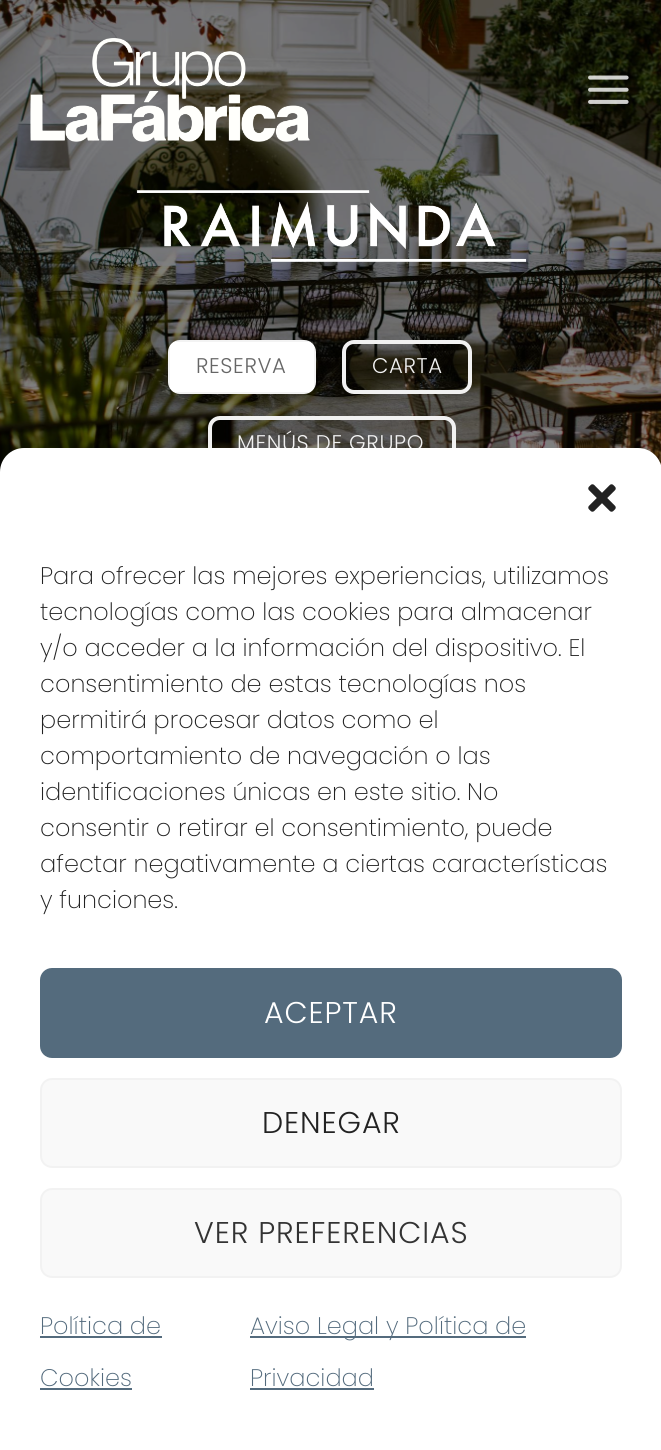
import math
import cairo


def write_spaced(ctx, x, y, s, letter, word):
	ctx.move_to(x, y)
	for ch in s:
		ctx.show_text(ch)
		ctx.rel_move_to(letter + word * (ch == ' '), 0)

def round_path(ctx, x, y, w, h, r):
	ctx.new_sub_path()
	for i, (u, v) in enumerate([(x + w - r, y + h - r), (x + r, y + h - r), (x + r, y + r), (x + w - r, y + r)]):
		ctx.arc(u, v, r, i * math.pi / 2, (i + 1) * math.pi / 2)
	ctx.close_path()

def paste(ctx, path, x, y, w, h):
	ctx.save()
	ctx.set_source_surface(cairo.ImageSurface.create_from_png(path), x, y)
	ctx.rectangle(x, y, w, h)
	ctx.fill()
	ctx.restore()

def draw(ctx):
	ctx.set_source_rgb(1, 1, 1)
	ctx.paint()
	paste(ctx, 'media/3.png', 0, 0, 661, 472)
	paste(ctx, 'media/1.png', 30, 38, 280, 104)
	paste(ctx, 'media/2.png', 588, 75, 41, 29)
	paste(ctx, 'media/4.png', 136, 190, 391, 72)
	ctx.set_source_rgb(1, 1, 1)
	round_path(ctx, 168, 340, 148, 54, 12)
	ctx.fill()
	ctx.rectangle(169, 341, 146, 52)
	ctx.set_source_rgba(0, 0, 0, 0.05)
	ctx.stroke()
	ctx.select_font_face('Poppins Light')
	ctx.set_font_size(21.25)
	ctx.set_source_rgb(0.4, 0.4, 0.4)
	write_spaced(ctx, 196, 373, 'RESERVA', 0.6, 0)
	round_path(ctx, 344, 342, 126, 50, 10)
	ctx.set_source_rgb(0.945, 0.945, 0.945)
	ctx.set_line_width(4)
	ctx.stroke()
	write_spaced(ctx, 372, 373, 'CARTA', 0.6, 0)
	round_path(ctx, 210, 418, 244, 50, 10)
	ctx.stroke()
	write_spaced(ctx, 237, 450, 'MENÚS DE GRUPO', 0.6, 0)
	ctx.set_source_rgb(1, 1, 1)
	round_path(ctx, 0, 448, 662, 1002, 24)
	ctx.fill()
	paste(ctx, 'media/5.png', 588, 484, 28, 28)
	ctx.select_font_face('Poppins ExtraLight')
	ctx.set_font_size(24)
	ctx.set_source_rgb(0.133, 0.133, 0.133)
	for x, y, s in [
		(40, 584, 'Para ofrecer las mejores experiencias, utilizamos'),
		(40, 620, 'tecnologías como las cookies para almacenar'),
		(40, 656, 'y/o acceder a la información del dispositivo. El'),
		(40, 692, 'consentimiento de estas tecnologías nos'),
		(40, 728, 'permitirá procesar datos como el'),
		(40, 764, 'comportamiento de navegación o las'),
		(40, 800, 'identificaciones únicas en este sitio. No'),
		(40, 836, 'consentir o retirar el consentimiento, puede'),
		(40, 872, 'afectar negativamente a ciertas características'),
		(40, 908, 'y funciones.'),
	]:
		ctx.move_to(x, y)
		ctx.show_text(s)
	ctx.set_source_rgb(0.329, 0.42, 0.49)
	round_path(ctx, 41, 969, 580, 88, 11)
	ctx.fill_preserve()
	ctx.set_line_width(2)
	ctx.stroke()
	ctx.select_font_face('Poppins Light')
	ctx.set_font_size(30)
	ctx.set_source_rgb(1, 1, 1)
	write_spaced(ctx, 264, 1023, 'ACEPTAR', 0.9, 0)
	ctx.set_source_rgb(0.976, 0.976, 0.976)
	round_path(ctx, 41, 1079, 580, 88, 11)
	ctx.fill_preserve()
	ctx.set_source_rgb(0.949, 0.949, 0.949)
	ctx.stroke()
	ctx.set_source_rgb(0.133, 0.133, 0.133)
	write_spaced(ctx, 262, 1133, 'DENEGAR', 0.9, 0)
	ctx.set_source_rgb(0.976, 0.976, 0.976)
	round_path(ctx, 41, 1189, 580, 88, 11)
	ctx.fill_preserve()
	ctx.set_source_rgb(0.949, 0.949, 0.949)
	ctx.stroke()
	ctx.set_source_rgb(0.2, 0.2, 0.2)
	write_spaced(ctx, 194, 1243, 'VER PREFERENCIAS', 0.9, 0)
	ctx.select_font_face('Poppins ExtraLight')
	ctx.set_font_size(24)
	ctx.set_source_rgb(0.329, 0.42, 0.49)
	ctx.move_to(40, 1334)
	ctx.show_text('Política de')
	ctx.rectangle(40, 1336, 122, 2)
	ctx.fill()
	ctx.move_to(40, 1386)
	ctx.show_text('Cookies')
	ctx.rectangle(40, 1388, 92, 2)
	ctx.fill()
	ctx.rectangle(250, 1336, 276, 2)
	ctx.fill()
	ctx.move_to(250, 1334)
	ctx.show_text('Aviso Legal y Política de')
	ctx.move_to(250, 1386)
	ctx.show_text('Privacidad')
	ctx.rectangle(250, 1388, 124, 2)
	ctx.fill()


surface = cairo.ImageSurface(cairo.FORMAT_RGB24, 661, 1450)
ctx = cairo.Context(surface)
options = cairo.FontOptions()
options.set_hint_metrics(cairo.HINT_METRICS_OFF)
options.set_hint_style(cairo.HINT_STYLE_NONE)
ctx.set_font_options(options)
ctx.set_miter_limit(4)
draw(ctx)
surface.write_to_png('image.png')
